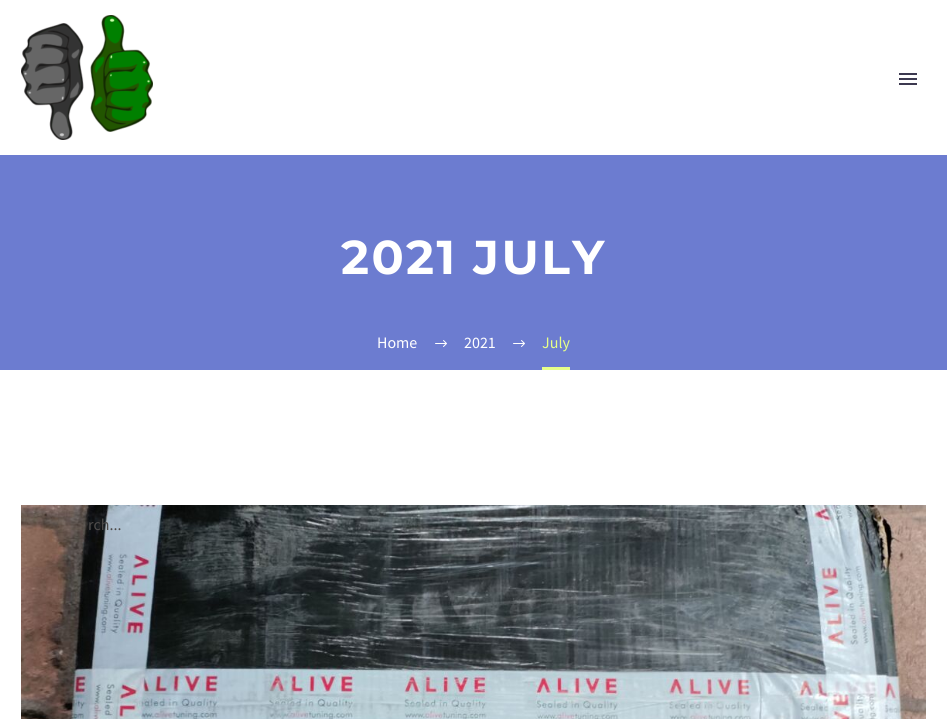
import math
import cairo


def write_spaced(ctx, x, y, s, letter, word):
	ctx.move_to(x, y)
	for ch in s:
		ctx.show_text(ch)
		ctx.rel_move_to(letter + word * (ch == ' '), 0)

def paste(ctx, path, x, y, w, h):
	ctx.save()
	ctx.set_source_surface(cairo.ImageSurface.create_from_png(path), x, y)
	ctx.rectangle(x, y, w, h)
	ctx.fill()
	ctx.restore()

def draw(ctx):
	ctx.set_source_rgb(1, 1, 1)
	ctx.paint()
	ctx.set_source_rgb(0.424, 0.486, 0.816)
	ctx.rectangle(0, 155, 947, 215)
	ctx.fill()
	ctx.select_font_face('Montserrat', cairo.FONT_SLANT_NORMAL, cairo.FONT_WEIGHT_BOLD)
	ctx.set_font_size(47.5)
	ctx.set_source_rgb(1, 1, 1)
	write_spaced(ctx, 341, 274, '2021 JULY', 2.4, 0)
	ctx.select_font_face('Source Sans Pro')
	ctx.set_font_size(16)
	ctx.move_to(377, 348)
	ctx.show_text('Home')
	paste(ctx, 'media/1.png', 435, 340, 12, 7)
	ctx.move_to(464, 348)
	ctx.show_text('2021')
	paste(ctx, 'media/1.png', 513, 340, 12, 7)
	ctx.set_source_rgb(0.906, 1, 0.537)
	ctx.rectangle(542, 367, 28, 3)
	ctx.fill()
	ctx.move_to(542, 348)
	ctx.show_text('July')
	paste(ctx, 'media/2.png', 21, 505, 905, 214)
	paste(ctx, 'media/3.png', 21, 15, 132, 125)
	ctx.set_source_rgb(0.235, 0.224, 0.314)
	ctx.rectangle(899, 73, 18, 2)
	ctx.rectangle(899, 78, 18, 2)
	ctx.rectangle(899, 83, 18, 2)
	ctx.fill()
	ctx.set_source_rgb(0.306, 0.294, 0.29)
	ctx.move_to(88, 530)
	ctx.show_text('rch...')


surface = cairo.ImageSurface(cairo.FORMAT_RGB24, 947, 719)
ctx = cairo.Context(surface)
options = cairo.FontOptions()
options.set_hint_metrics(cairo.HINT_METRICS_OFF)
options.set_hint_style(cairo.HINT_STYLE_NONE)
ctx.set_font_options(options)
ctx.set_miter_limit(4)
draw(ctx)
surface.write_to_png('image.png')
